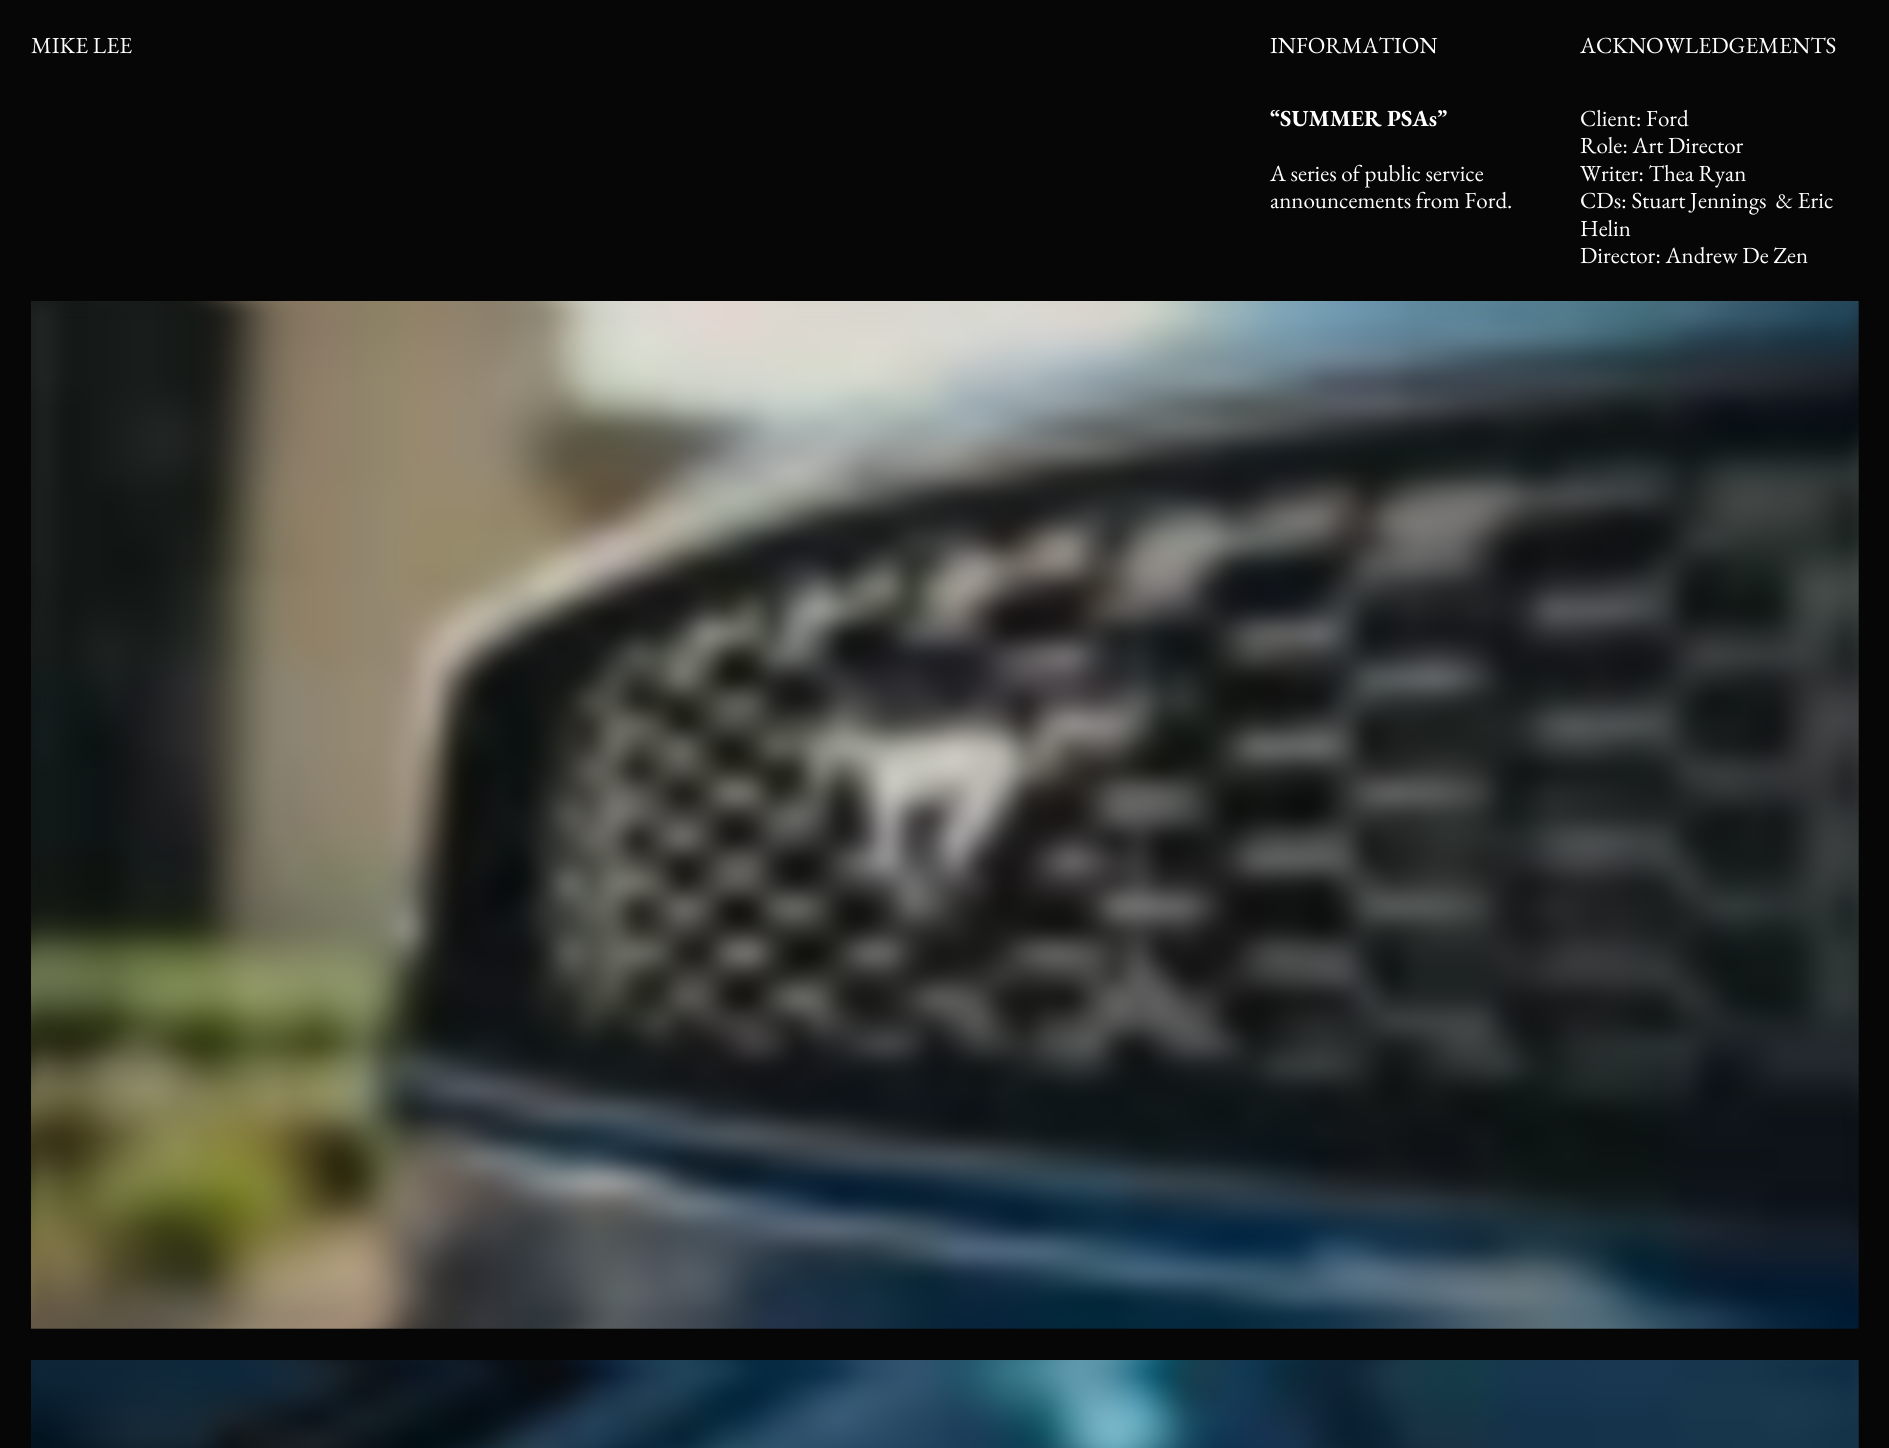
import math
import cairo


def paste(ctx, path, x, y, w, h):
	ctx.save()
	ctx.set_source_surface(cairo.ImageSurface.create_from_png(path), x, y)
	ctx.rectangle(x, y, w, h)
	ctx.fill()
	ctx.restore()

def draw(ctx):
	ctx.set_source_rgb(0.024, 0.024, 0.024)
	ctx.paint()
	ctx.select_font_face('EB Garamond')
	ctx.set_font_size(23)
	ctx.set_source_rgb(1, 1, 1)
	for x, y, s in [
		(31, 53, 'MIKE LEE'),
		(1270, 53, 'INFORMATION'),
		(1580, 53, 'ACKNOWLEDGEMENTS'),
	]:
		ctx.move_to(x, y)
		ctx.show_text(s)
	ctx.select_font_face('EB Garamond', cairo.FONT_SLANT_NORMAL, cairo.FONT_WEIGHT_BOLD)
	ctx.move_to(1270, 126)
	ctx.show_text('“SUMMER PSAs”')
	ctx.select_font_face('EB Garamond')
	for x, y, s in [
		(1270, 181, 'A series of public service'),
		(1270, 208, 'announcements from Ford.'),
		(1580, 126, 'Client: Ford'),
		(1580, 153, 'Role: Art Director'),
		(1580, 181, 'Writer: Thea Ryan'),
		(1580, 208, 'CDs: Stuart Jennings  & Eric'),
		(1580, 236, 'Helin'),
		(1580, 263, 'Director: Andrew De Zen'),
	]:
		ctx.move_to(x, y)
		ctx.show_text(s)
	paste(ctx, 'media/1.png', 31, 301, 1828, 1028)
	paste(ctx, 'media/2.png', 31, 1360, 1828, 88)


surface = cairo.ImageSurface(cairo.FORMAT_RGB24, 1889, 1448)
ctx = cairo.Context(surface)
options = cairo.FontOptions()
options.set_hint_metrics(cairo.HINT_METRICS_OFF)
options.set_hint_style(cairo.HINT_STYLE_NONE)
ctx.set_font_options(options)
ctx.set_miter_limit(4)
draw(ctx)
surface.write_to_png('image.png')
